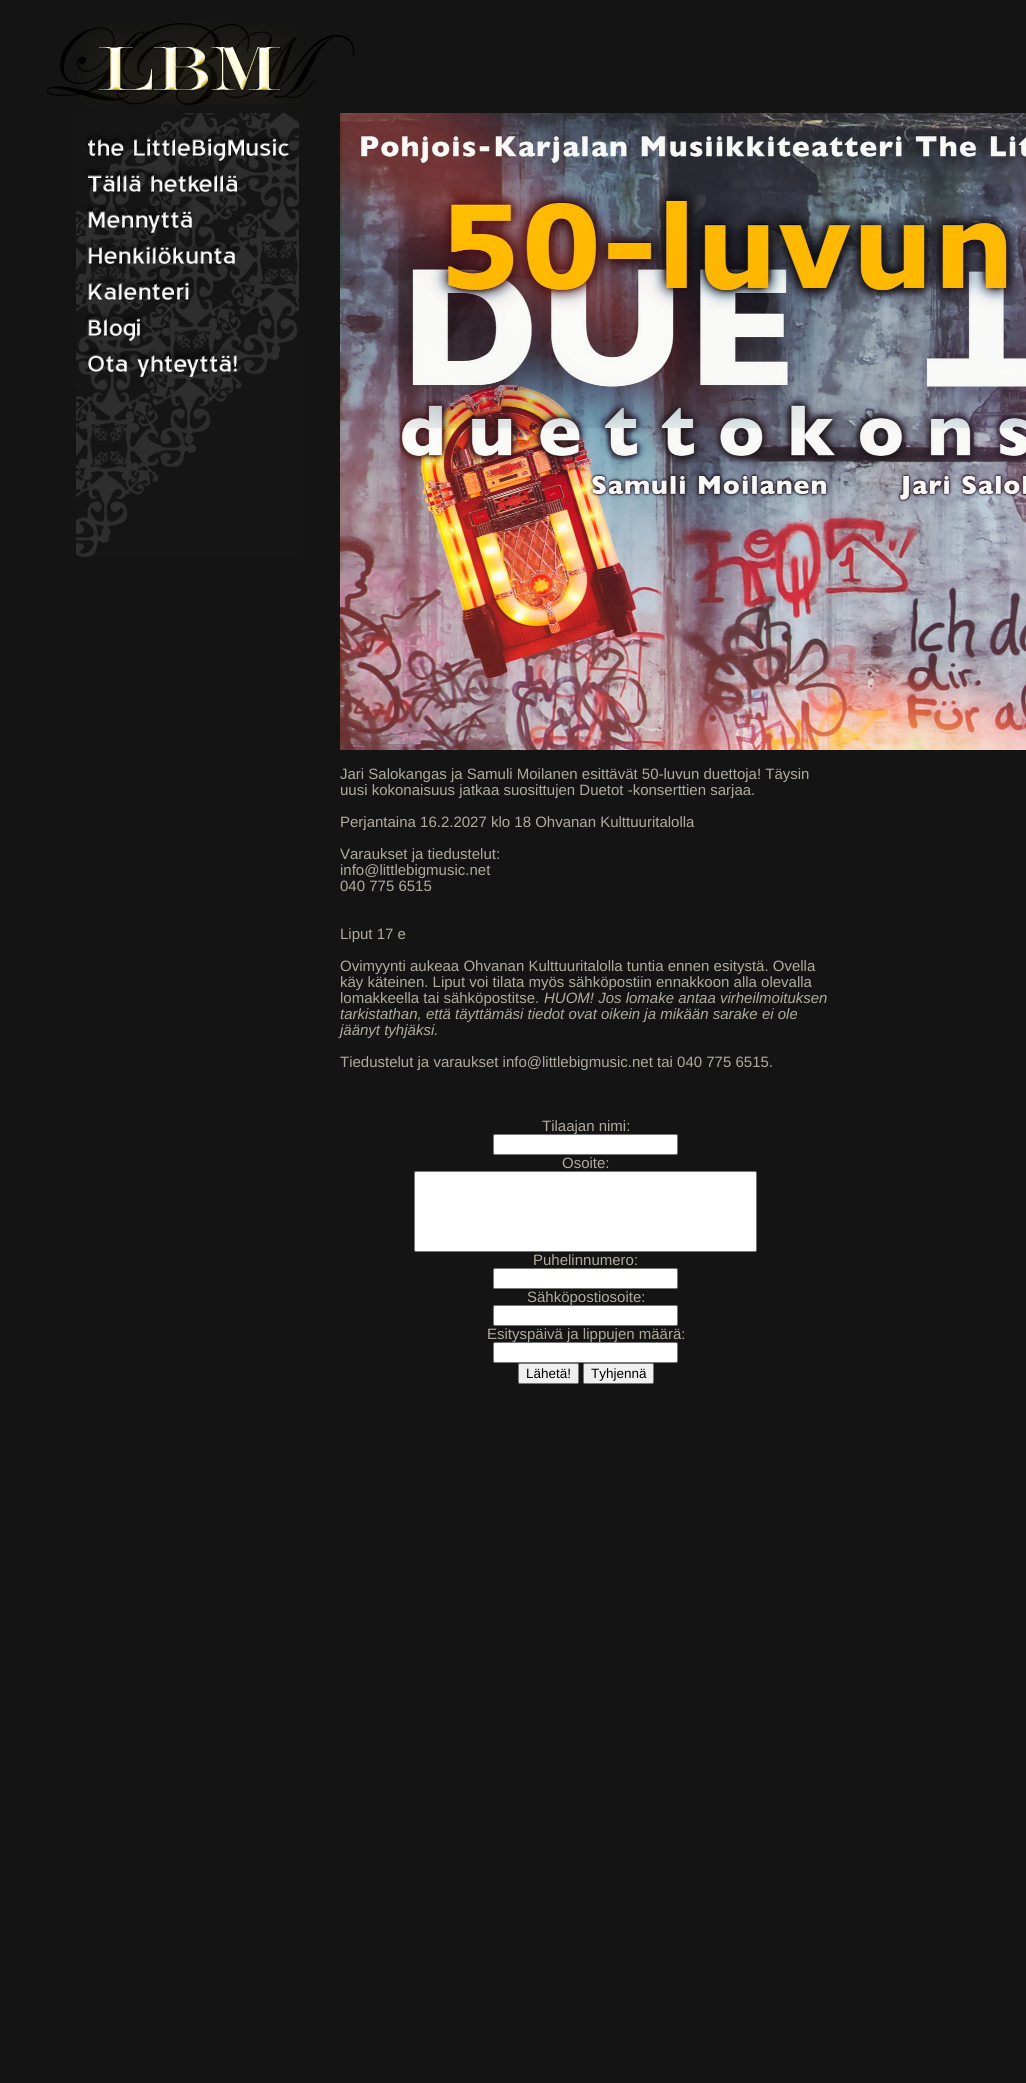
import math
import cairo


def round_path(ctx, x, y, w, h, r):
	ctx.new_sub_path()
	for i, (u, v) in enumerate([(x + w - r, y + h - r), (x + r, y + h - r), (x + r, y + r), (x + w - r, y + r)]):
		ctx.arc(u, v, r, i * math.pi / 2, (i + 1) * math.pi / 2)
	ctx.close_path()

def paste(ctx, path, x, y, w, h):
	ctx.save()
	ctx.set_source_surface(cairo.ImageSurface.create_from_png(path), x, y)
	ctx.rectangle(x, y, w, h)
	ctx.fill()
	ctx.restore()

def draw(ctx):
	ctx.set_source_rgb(0.082, 0.082, 0.082)
	ctx.paint()
	paste(ctx, 'media/1.png', 47, 23, 308, 82)
	paste(ctx, 'media/2.png', 76, 113, 223, 444)
	paste(ctx, 'media/3.png', 340, 113, 686, 637)
	ctx.select_font_face('Liberation Sans')
	ctx.set_font_size(15)
	ctx.set_source_rgb(0.686, 0.671, 0.627)
	for x, y, s in [
		(340, 779, 'Jari Salokangas ja Samuli Moilanen esittävät 50-luvun duettoja! Täysin'),
		(340, 795, 'uusi kokonaisuus jatkaa suosittujen Duetot -konserttien sarjaa.'),
		(340, 827, 'Perjantaina 16.2.2027 klo 18 Ohvanan Kulttuuritalolla'),
		(340, 859, 'Varaukset ja tiedustelut:'),
		(340, 875, 'info@littlebigmusic.net'),
		(340, 891, '040 775 6515'),
		(340, 939, 'Liput 17 e'),
		(340, 971, 'Ovimyynti aukeaa Ohvanan Kulttuuritalolla tuntia ennen esitystä. Ovella'),
		(340, 987, 'käy käteinen. Liput voi tilata myös sähköpostiin ennakkoon alla olevalla'),
		(340, 1003, 'lomakkeella tai sähköpostitse.'),
	]:
		ctx.move_to(x, y)
		ctx.show_text(s)
	ctx.select_font_face('Liberation Sans', cairo.FONT_SLANT_ITALIC)
	for x, y, s in [
		(544, 1003, 'HUOM! Jos lomake antaa virheilmoituksen'),
		(340, 1019, 'tarkistathan, että täyttämäsi tiedot ovat oikein ja mikään sarake ei ole'),
		(340, 1035, 'jäänyt tyhjäksi.'),
	]:
		ctx.move_to(x, y)
		ctx.show_text(s)
	ctx.select_font_face('Liberation Sans')
	ctx.move_to(340, 1067)
	ctx.show_text('Tiedustelut ja varaukset info@littlebigmusic.net tai 040 775 6515.')
	ctx.move_to(542, 1131)
	ctx.show_text('Tilaajan nimi:')
	ctx.set_source_rgb(1, 1, 1)
	round_path(ctx, 493.5, 1134.5, 184, 20, 1.5)
	ctx.fill_preserve()
	ctx.set_source_rgb(0.463, 0.463, 0.463)
	ctx.set_line_width(1)
	ctx.stroke()
	ctx.set_source_rgb(0.686, 0.671, 0.627)
	ctx.move_to(562, 1168)
	ctx.show_text('Osoite:')
	ctx.set_source_rgb(1, 1, 1)
	round_path(ctx, 414.5, 1171.5, 342, 80, 1.5)
	ctx.fill_preserve()
	ctx.set_source_rgb(0.463, 0.463, 0.463)
	ctx.stroke()
	ctx.set_source_rgb(0.686, 0.671, 0.627)
	ctx.move_to(533, 1265)
	ctx.show_text('Puhelinnumero:')
	ctx.set_source_rgb(1, 1, 1)
	round_path(ctx, 493.5, 1268.5, 184, 20, 1.5)
	ctx.fill_preserve()
	ctx.set_source_rgb(0.463, 0.463, 0.463)
	ctx.stroke()
	ctx.set_source_rgb(0.686, 0.671, 0.627)
	ctx.move_to(527, 1302)
	ctx.show_text('Sähköpostiosoite:')
	ctx.set_source_rgb(1, 1, 1)
	round_path(ctx, 493.5, 1305.5, 184, 20, 1.5)
	ctx.fill_preserve()
	ctx.set_source_rgb(0.463, 0.463, 0.463)
	ctx.stroke()
	ctx.set_source_rgb(0.686, 0.671, 0.627)
	ctx.move_to(487, 1339)
	ctx.show_text('Esityspäivä ja lippujen määrä:')
	ctx.set_source_rgb(1, 1, 1)
	round_path(ctx, 493.5, 1342.5, 184, 20, 1.5)
	ctx.fill_preserve()
	ctx.set_source_rgb(0.463, 0.463, 0.463)
	ctx.stroke()
	ctx.set_source_rgb(0.937, 0.937, 0.937)
	round_path(ctx, 518.5, 1363.5, 60, 20, 1.5)
	ctx.fill_preserve()
	ctx.set_source_rgb(0.463, 0.463, 0.463)
	ctx.stroke()
	ctx.set_font_size(13.5)
	ctx.set_source_rgb(0, 0, 0)
	ctx.move_to(526, 1378)
	ctx.show_text('Lähetä!')
	ctx.set_source_rgb(0.937, 0.937, 0.937)
	round_path(ctx, 583.5, 1363.5, 70, 20, 1.5)
	ctx.fill_preserve()
	ctx.set_source_rgb(0.463, 0.463, 0.463)
	ctx.stroke()
	ctx.set_source_rgb(0, 0, 0)
	ctx.move_to(591, 1378)
	ctx.show_text('Tyhjennä')


surface = cairo.ImageSurface(cairo.FORMAT_RGB24, 1026, 2083)
ctx = cairo.Context(surface)
options = cairo.FontOptions()
options.set_hint_metrics(cairo.HINT_METRICS_OFF)
options.set_hint_style(cairo.HINT_STYLE_NONE)
ctx.set_font_options(options)
ctx.set_miter_limit(4)
draw(ctx)
surface.write_to_png('image.png')
